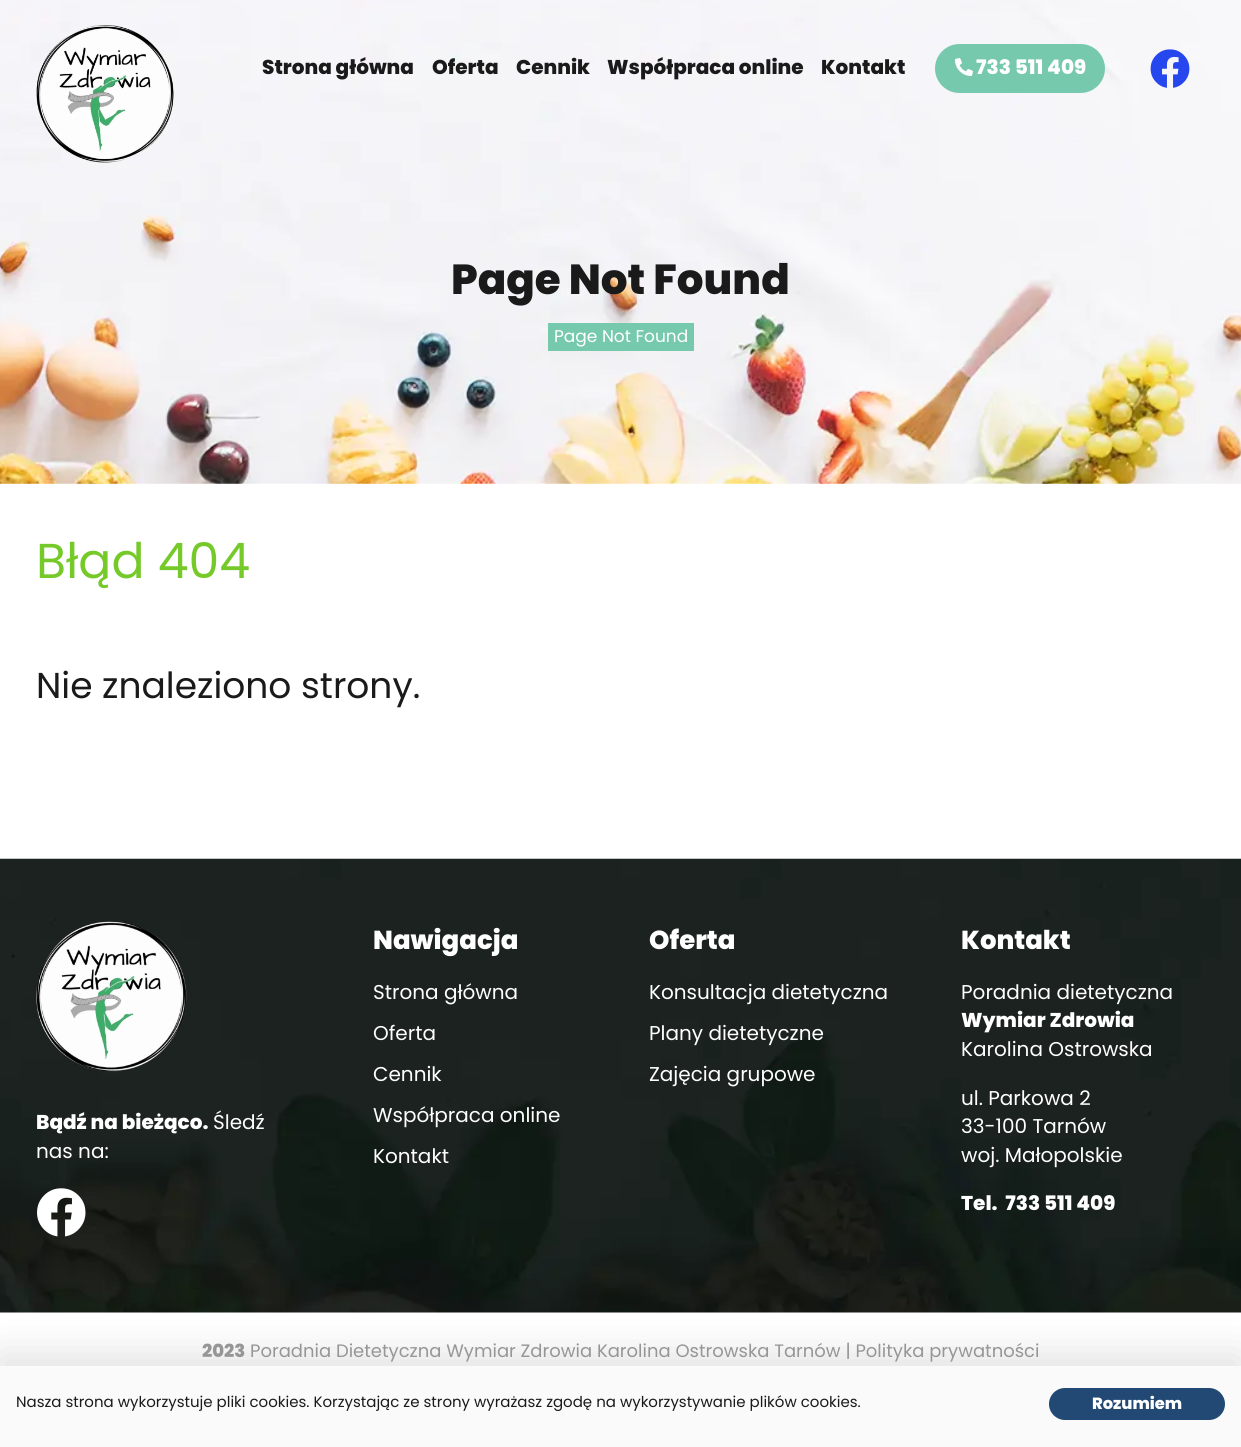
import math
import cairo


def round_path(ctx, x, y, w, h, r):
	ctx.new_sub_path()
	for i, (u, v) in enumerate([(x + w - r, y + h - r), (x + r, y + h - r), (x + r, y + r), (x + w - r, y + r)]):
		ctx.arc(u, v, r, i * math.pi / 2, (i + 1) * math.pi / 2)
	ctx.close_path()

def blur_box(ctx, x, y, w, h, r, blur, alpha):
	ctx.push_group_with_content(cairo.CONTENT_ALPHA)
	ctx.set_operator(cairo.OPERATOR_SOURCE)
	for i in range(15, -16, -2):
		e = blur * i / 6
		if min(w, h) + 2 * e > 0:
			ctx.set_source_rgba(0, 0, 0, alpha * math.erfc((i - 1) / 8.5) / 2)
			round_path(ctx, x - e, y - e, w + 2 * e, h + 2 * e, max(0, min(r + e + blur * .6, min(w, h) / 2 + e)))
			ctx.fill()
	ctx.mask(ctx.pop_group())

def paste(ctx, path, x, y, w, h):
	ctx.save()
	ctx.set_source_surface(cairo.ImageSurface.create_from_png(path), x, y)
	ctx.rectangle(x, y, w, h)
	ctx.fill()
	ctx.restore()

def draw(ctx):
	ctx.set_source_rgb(1, 1, 1)
	ctx.paint()
	paste(ctx, 'media/1.png', 0, 0, 1241, 484)
	paste(ctx, 'media/2.png', 36, 25, 138, 138)
	ctx.select_font_face('Poppins ExtraBold')
	ctx.set_font_size(20)
	ctx.set_source_rgb(0.102, 0.102, 0.102)
	for x, y, s in [
		(262, 74, 'Strona główna'),
		(432, 74, 'Oferta'),
		(516, 74, 'Cennik'),
		(607, 74, 'Współpraca online'),
		(821, 74, 'Kontakt'),
	]:
		ctx.move_to(x, y)
		ctx.show_text(s)
	ctx.set_source_rgb(0.467, 0.788, 0.682)
	round_path(ctx, 935, 44, 170, 49, 24.5)
	ctx.fill()
	paste(ctx, 'media/3.png', 955, 58, 18, 18)
	ctx.set_source_rgb(1, 1, 1)
	ctx.move_to(976, 74)
	ctx.show_text('733 511 409')
	paste(ctx, 'media/4.png', 1150, 49, 40, 39)
	ctx.set_font_size(42)
	ctx.set_source_rgb(0.102, 0.102, 0.102)
	ctx.move_to(451, 294)
	ctx.show_text('Page Not Found')
	ctx.set_source_rgb(0.467, 0.788, 0.682)
	ctx.rectangle(548, 323, 146, 28)
	ctx.fill()
	ctx.select_font_face('Poppins')
	ctx.set_font_size(17)
	ctx.set_source_rgb(1, 1, 1)
	ctx.move_to(554, 342)
	ctx.show_text('Page Not Found')
	ctx.set_font_size(49)
	ctx.set_source_rgb(0.459, 0.792, 0.165)
	ctx.move_to(36, 578)
	ctx.show_text('Błąd 404')
	ctx.set_font_size(36)
	ctx.set_source_rgb(0.102, 0.102, 0.102)
	ctx.move_to(36, 698)
	ctx.show_text('Nie znaleziono strony.')
	paste(ctx, 'media/5.png', 0, 858, 1241, 455)
	paste(ctx, 'media/6.png', 36, 921, 151, 151)
	ctx.select_font_face('Poppins ExtraBold')
	ctx.set_font_size(20)
	ctx.set_source_rgb(1, 1, 1)
	ctx.move_to(36, 1129)
	ctx.show_text('Bądź na bieżąco.')
	ctx.select_font_face('Poppins')
	ctx.move_to(213, 1129)
	ctx.show_text('Śledź')
	ctx.move_to(36, 1158)
	ctx.show_text('nas na:')
	paste(ctx, 'media/7.png', 37, 1188, 49, 49)
	ctx.select_font_face('Poppins ExtraBold')
	ctx.set_font_size(26)
	ctx.move_to(373, 949)
	ctx.show_text('Nawigacja')
	ctx.select_font_face('Poppins')
	ctx.set_font_size(20)
	for x, y, s in [
		(373, 999, 'Strona główna'),
		(373, 1040, 'Oferta'),
		(373, 1081, 'Cennik'),
		(373, 1122, 'Współpraca online'),
		(373, 1163, 'Kontakt'),
	]:
		ctx.move_to(x, y)
		ctx.show_text(s)
	ctx.select_font_face('Poppins ExtraBold')
	ctx.set_font_size(26)
	ctx.move_to(649, 949)
	ctx.show_text('Oferta')
	ctx.select_font_face('Poppins')
	ctx.set_font_size(20)
	for x, y, s in [
		(649, 999, 'Konsultacja dietetyczna'),
		(649, 1040, 'Plany dietetyczne'),
		(649, 1081, 'Zajęcia grupowe'),
	]:
		ctx.move_to(x, y)
		ctx.show_text(s)
	ctx.select_font_face('Poppins ExtraBold')
	ctx.set_font_size(26)
	ctx.move_to(961, 949)
	ctx.show_text('Kontakt')
	ctx.select_font_face('Poppins')
	ctx.set_font_size(20)
	ctx.move_to(961, 999)
	ctx.show_text('Poradnia dietetyczna')
	ctx.select_font_face('Poppins ExtraBold')
	ctx.move_to(961, 1027)
	ctx.show_text('Wymiar Zdrowia')
	ctx.select_font_face('Poppins')
	for x, y, s in [
		(961, 1056, 'Karolina Ostrowska'),
		(961, 1105, 'ul. Parkowa 2'),
		(961, 1133, '33-100 Tarnów'),
		(961, 1162, 'woj. Małopolskie'),
	]:
		ctx.move_to(x, y)
		ctx.show_text(s)
	ctx.select_font_face('Poppins ExtraBold')
	ctx.move_to(961, 1210)
	ctx.show_text('Tel.  733 511 409')
	ctx.save()
	ctx.set_fill_rule(cairo.FILL_RULE_EVEN_ODD)
	ctx.new_path()
	ctx.move_to(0, 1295)
	ctx.line_to(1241, 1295)
	ctx.line_to(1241, 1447)
	ctx.line_to(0, 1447)
	ctx.close_path()
	ctx.move_to(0, 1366)
	ctx.line_to(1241, 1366)
	ctx.line_to(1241, 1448)
	ctx.line_to(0, 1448)
	ctx.close_path()
	ctx.clip()
	ctx.set_source_rgb(0, 0, 0)
	blur_box(ctx, 0, 1356, 1241, 82, 0, 20, 0.13)
	ctx.restore()
	ctx.set_source_rgba(0.973, 0.973, 0.973, 0.8)
	ctx.rectangle(0, 1366, 1241, 81)
	ctx.fill()
	ctx.select_font_face('Poppins')
	ctx.set_font_size(15)
	ctx.set_source_rgb(0.102, 0.102, 0.102)
	ctx.move_to(16, 1407)
	ctx.show_text('Nasza strona wykorzystuje pliki cookies. Korzystając ze strony wyrażasz zgodę na wykorzystywanie plików cookies.')
	ctx.set_source_rgb(0.129, 0.286, 0.451)
	round_path(ctx, 1049, 1388, 176, 32, 16)
	ctx.fill()
	ctx.select_font_face('Poppins ExtraBold')
	ctx.set_font_size(16.25)
	ctx.set_source_rgb(1, 1, 1)
	ctx.move_to(1092, 1409)
	ctx.show_text('Rozumiem')
	ctx.set_font_size(18)
	ctx.set_source_rgb(0.592, 0.588, 0.592)
	ctx.move_to(202, 1357)
	ctx.show_text('2023')
	ctx.select_font_face('Poppins')
	ctx.move_to(250, 1357)
	ctx.show_text('Poradnia Dietetyczna Wymiar Zdrowia Karolina Ostrowska Tarnów | Polityka prywatności')


surface = cairo.ImageSurface(cairo.FORMAT_RGB24, 1241, 1447)
ctx = cairo.Context(surface)
options = cairo.FontOptions()
options.set_hint_metrics(cairo.HINT_METRICS_OFF)
options.set_hint_style(cairo.HINT_STYLE_NONE)
ctx.set_font_options(options)
ctx.set_miter_limit(4)
draw(ctx)
surface.write_to_png('image.png')
